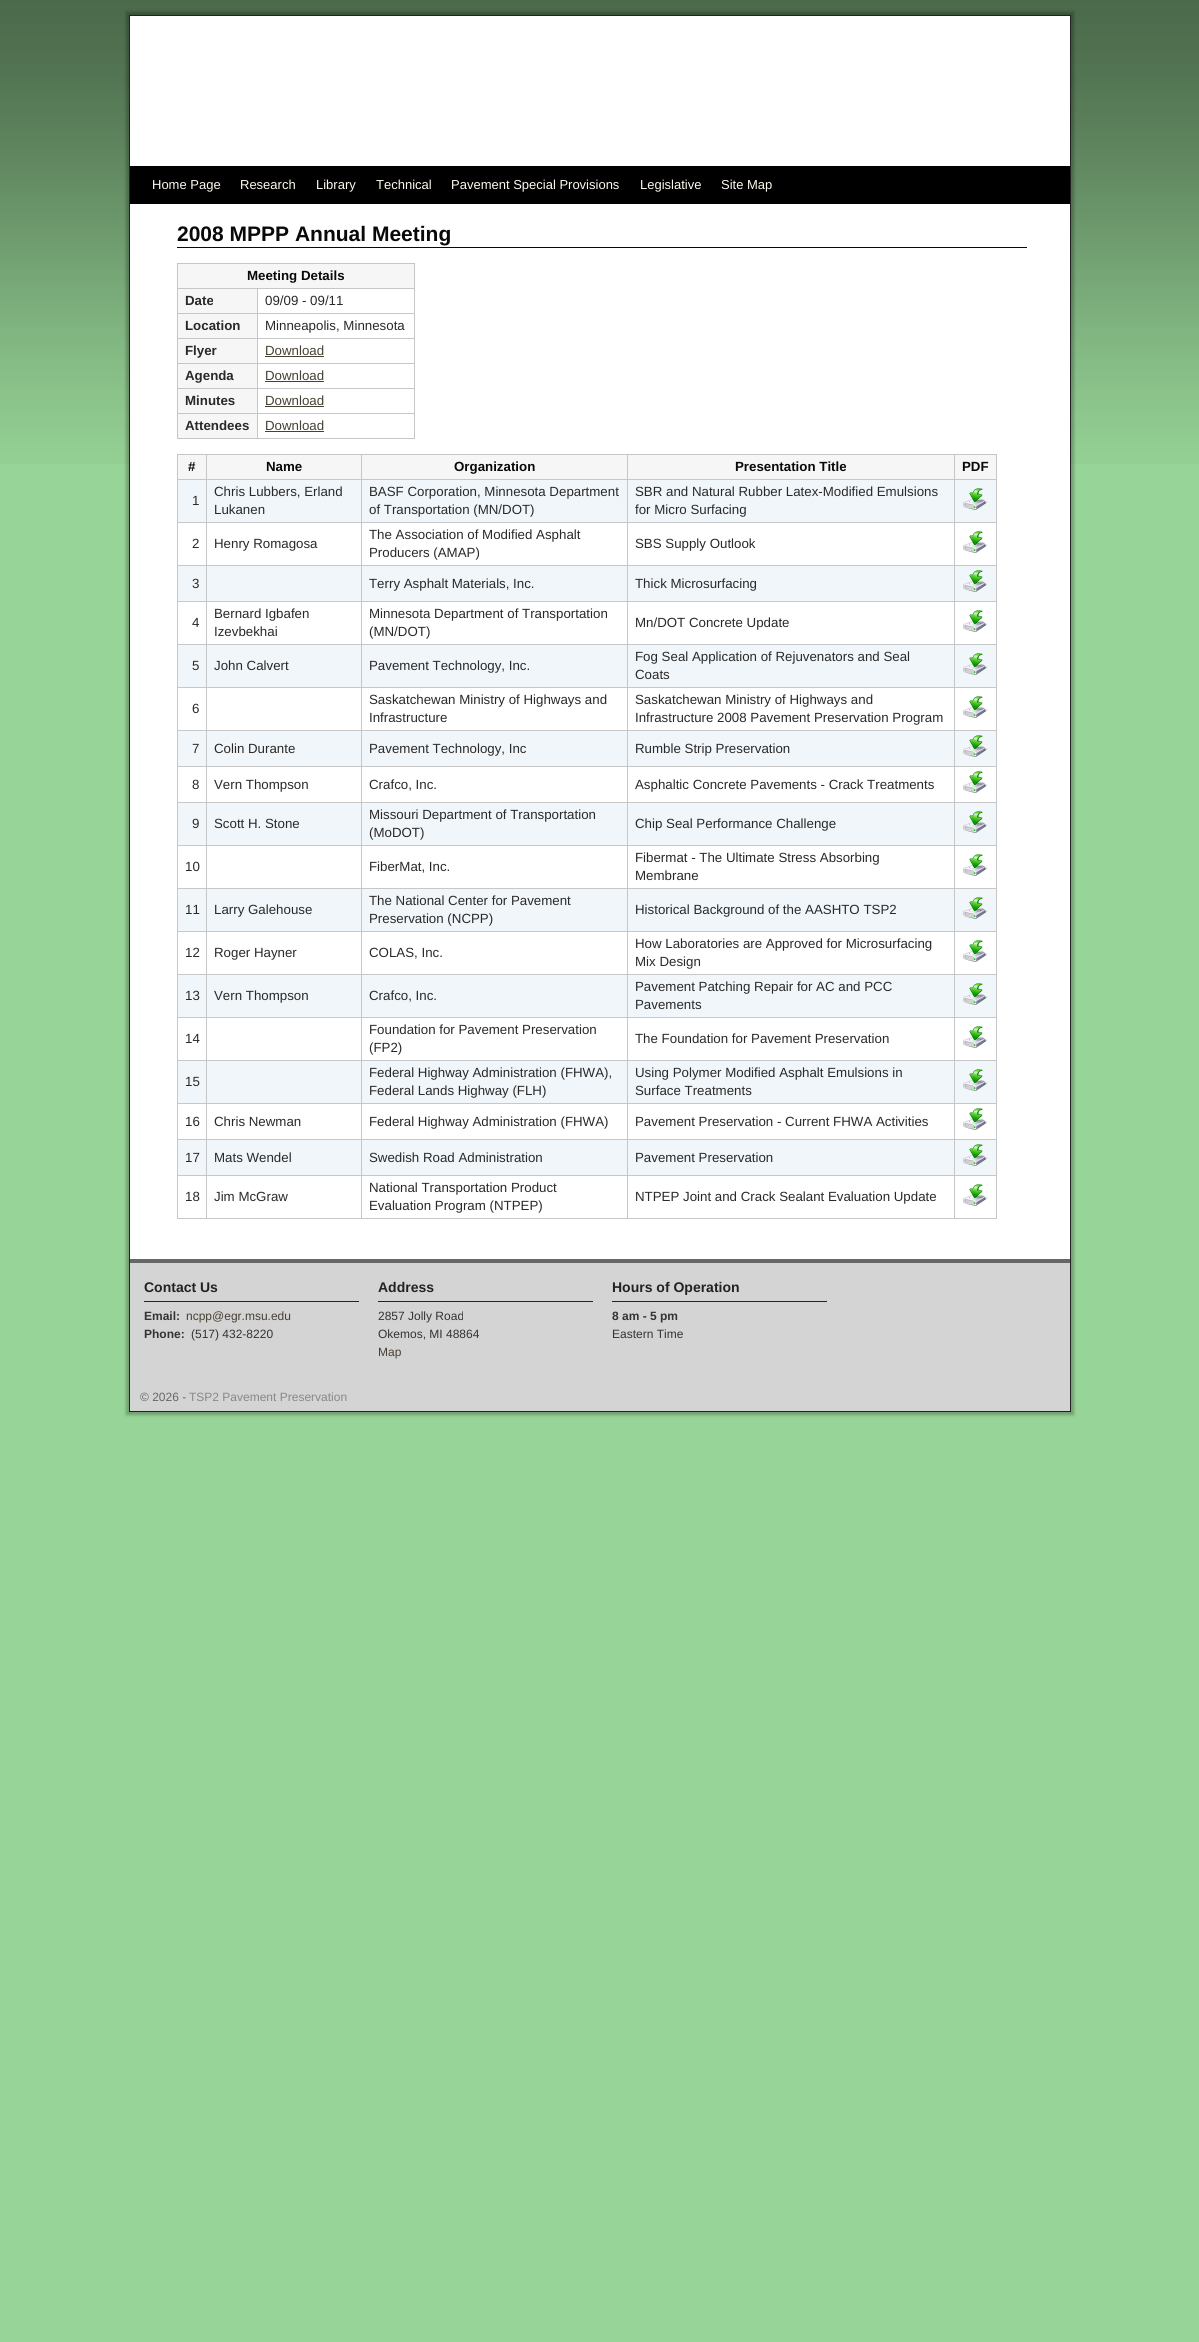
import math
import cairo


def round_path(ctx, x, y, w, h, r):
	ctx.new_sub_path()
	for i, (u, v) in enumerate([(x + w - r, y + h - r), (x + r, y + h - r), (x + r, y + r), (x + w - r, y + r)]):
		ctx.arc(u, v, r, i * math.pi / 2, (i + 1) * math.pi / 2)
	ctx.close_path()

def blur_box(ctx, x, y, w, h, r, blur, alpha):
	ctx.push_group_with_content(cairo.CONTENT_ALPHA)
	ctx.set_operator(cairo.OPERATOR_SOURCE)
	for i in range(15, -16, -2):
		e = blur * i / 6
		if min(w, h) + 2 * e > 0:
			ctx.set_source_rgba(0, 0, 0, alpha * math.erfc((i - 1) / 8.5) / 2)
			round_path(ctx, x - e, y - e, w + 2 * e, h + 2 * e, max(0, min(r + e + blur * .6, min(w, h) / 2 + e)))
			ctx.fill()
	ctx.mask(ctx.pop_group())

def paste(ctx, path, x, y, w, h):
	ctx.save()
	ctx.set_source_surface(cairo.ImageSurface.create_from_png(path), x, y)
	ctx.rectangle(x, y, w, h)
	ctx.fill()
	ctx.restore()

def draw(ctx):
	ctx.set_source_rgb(0.592, 0.831, 0.592)
	ctx.paint()
	paste(ctx, 'media/1.png', 0, 0, 1199, 464)
	ctx.set_source_rgb(0, 0, 0)
	blur_box(ctx, 126, 12, 948, 1403, 0, 1.5, 0.25)
	ctx.set_source_rgb(1, 1, 1)
	ctx.rectangle(130, 16, 940, 1243)
	ctx.fill()
	ctx.rectangle(129.5, 15.5, 941, 1396)
	ctx.set_source_rgb(0.133, 0.133, 0.133)
	ctx.set_line_width(1)
	ctx.stroke()
	ctx.set_source_rgb(0, 0, 0)
	ctx.rectangle(130, 166, 940, 38)
	ctx.fill()
	ctx.select_font_face('Liberation Sans')
	ctx.set_font_size(13)
	ctx.set_source_rgb(1, 0.98, 0.937)
	for x, y, s in [
		(152, 189, 'Home Page'),
		(240, 189, 'Research'),
		(316, 189, 'Library'),
		(376, 189, 'Technical'),
		(451, 189, 'Pavement Special Provisions'),
		(640, 189, 'Legislative'),
		(721, 189, 'Site Map'),
	]:
		ctx.move_to(x, y)
		ctx.show_text(s)
	ctx.set_source_rgb(0.039, 0.039, 0.039)
	ctx.rectangle(177, 247, 850, 1)
	ctx.fill()
	ctx.select_font_face('Liberation Sans', cairo.FONT_SLANT_NORMAL, cairo.FONT_WEIGHT_BOLD)
	ctx.set_font_size(21)
	ctx.move_to(177, 241)
	ctx.show_text('2008 MPPP Annual Meeting')
	ctx.set_source_rgb(0.776, 0.776, 0.776)
	ctx.rectangle(177, 263, 238, 1)
	ctx.rectangle(414, 263, 1, 176)
	ctx.rectangle(177, 438, 238, 1)
	ctx.rectangle(177, 263, 1, 176)
	ctx.fill()
	ctx.set_source_rgb(0.961, 0.961, 0.961)
	ctx.rectangle(178, 264, 236, 24)
	ctx.fill()
	ctx.set_font_size(13.3)
	ctx.set_source_rgb(0.039, 0.039, 0.039)
	ctx.move_to(247, 280)
	ctx.show_text('Meeting Details')
	ctx.set_source_rgb(0.961, 0.961, 0.961)
	ctx.rectangle(178, 289, 79, 24)
	ctx.fill()
	ctx.set_source_rgb(0.776, 0.776, 0.776)
	ctx.rectangle(257, 288, 158, 1)
	ctx.rectangle(257, 313, 158, 1)
	ctx.rectangle(257, 338, 158, 1)
	ctx.rectangle(257, 363, 158, 1)
	ctx.rectangle(257, 388, 158, 1)
	ctx.rectangle(257, 413, 158, 1)
	ctx.rectangle(257, 413, 1, 26)
	ctx.rectangle(177, 413, 81, 1)
	ctx.rectangle(257, 388, 1, 26)
	ctx.rectangle(177, 388, 81, 1)
	ctx.rectangle(257, 363, 1, 26)
	ctx.rectangle(177, 363, 81, 1)
	ctx.rectangle(257, 338, 1, 26)
	ctx.rectangle(177, 338, 81, 1)
	ctx.rectangle(257, 313, 1, 26)
	ctx.rectangle(177, 313, 81, 1)
	ctx.rectangle(257, 288, 1, 26)
	ctx.rectangle(177, 288, 81, 1)
	ctx.fill()
	ctx.set_source_rgb(0.161, 0.161, 0.161)
	ctx.move_to(185, 305)
	ctx.show_text('Date')
	ctx.select_font_face('Liberation Sans')
	ctx.move_to(265, 305)
	ctx.show_text('09/09 - 09/11')
	ctx.set_source_rgb(0.961, 0.961, 0.961)
	ctx.rectangle(178, 314, 79, 24)
	ctx.fill()
	ctx.select_font_face('Liberation Sans', cairo.FONT_SLANT_NORMAL, cairo.FONT_WEIGHT_BOLD)
	ctx.set_source_rgb(0.161, 0.161, 0.161)
	ctx.move_to(185, 330)
	ctx.show_text('Location')
	ctx.select_font_face('Liberation Sans')
	ctx.move_to(265, 330)
	ctx.show_text('Minneapolis, Minnesota')
	ctx.set_source_rgb(0.961, 0.961, 0.961)
	ctx.rectangle(178, 339, 79, 24)
	ctx.fill()
	ctx.select_font_face('Liberation Sans', cairo.FONT_SLANT_NORMAL, cairo.FONT_WEIGHT_BOLD)
	ctx.set_source_rgb(0.161, 0.161, 0.161)
	ctx.move_to(185, 355)
	ctx.show_text('Flyer')
	ctx.select_font_face('Liberation Sans')
	ctx.set_source_rgb(0.278, 0.255, 0.204)
	ctx.move_to(265, 355)
	ctx.show_text('Download')
	ctx.rectangle(265, 356, 59, 1)
	ctx.fill()
	ctx.set_source_rgb(0.961, 0.961, 0.961)
	ctx.rectangle(178, 364, 79, 24)
	ctx.fill()
	ctx.select_font_face('Liberation Sans', cairo.FONT_SLANT_NORMAL, cairo.FONT_WEIGHT_BOLD)
	ctx.set_source_rgb(0.161, 0.161, 0.161)
	ctx.move_to(185, 380)
	ctx.show_text('Agenda')
	ctx.select_font_face('Liberation Sans')
	ctx.set_source_rgb(0.278, 0.255, 0.204)
	ctx.move_to(265, 380)
	ctx.show_text('Download')
	ctx.rectangle(265, 381, 59, 1)
	ctx.fill()
	ctx.set_source_rgb(0.961, 0.961, 0.961)
	ctx.rectangle(178, 389, 79, 24)
	ctx.fill()
	ctx.select_font_face('Liberation Sans', cairo.FONT_SLANT_NORMAL, cairo.FONT_WEIGHT_BOLD)
	ctx.set_source_rgb(0.161, 0.161, 0.161)
	ctx.move_to(185, 405)
	ctx.show_text('Minutes')
	ctx.select_font_face('Liberation Sans')
	ctx.set_source_rgb(0.278, 0.255, 0.204)
	ctx.move_to(265, 405)
	ctx.show_text('Download')
	ctx.rectangle(265, 406, 59, 1)
	ctx.fill()
	ctx.set_source_rgb(0.961, 0.961, 0.961)
	ctx.rectangle(178, 414, 79, 24)
	ctx.fill()
	ctx.select_font_face('Liberation Sans', cairo.FONT_SLANT_NORMAL, cairo.FONT_WEIGHT_BOLD)
	ctx.set_source_rgb(0.161, 0.161, 0.161)
	ctx.move_to(185, 430)
	ctx.show_text('Attendees')
	ctx.select_font_face('Liberation Sans')
	ctx.set_source_rgb(0.278, 0.255, 0.204)
	ctx.move_to(265, 430)
	ctx.show_text('Download')
	ctx.rectangle(265, 431, 59, 1)
	ctx.fill()
	ctx.set_source_rgb(0.776, 0.776, 0.776)
	ctx.rectangle(177, 454, 820, 1)
	ctx.rectangle(996, 454, 1, 765)
	ctx.rectangle(177, 1218, 820, 1)
	ctx.rectangle(177, 454, 1, 765)
	ctx.fill()
	ctx.set_source_rgb(0.961, 0.961, 0.961)
	ctx.rectangle(178, 455, 28, 24)
	ctx.fill()
	ctx.select_font_face('Liberation Sans', cairo.FONT_SLANT_NORMAL, cairo.FONT_WEIGHT_BOLD)
	ctx.set_source_rgb(0.039, 0.039, 0.039)
	ctx.move_to(188, 471)
	ctx.show_text('#')
	ctx.set_source_rgb(0.961, 0.961, 0.961)
	ctx.rectangle(207, 455, 154, 24)
	ctx.fill()
	ctx.set_source_rgb(0.039, 0.039, 0.039)
	ctx.move_to(266, 471)
	ctx.show_text('Name')
	ctx.set_source_rgb(0.961, 0.961, 0.961)
	ctx.rectangle(362, 455, 265, 24)
	ctx.fill()
	ctx.set_source_rgb(0.039, 0.039, 0.039)
	ctx.move_to(454, 471)
	ctx.show_text('Organization')
	ctx.set_source_rgb(0.961, 0.961, 0.961)
	ctx.rectangle(628, 455, 326, 24)
	ctx.fill()
	ctx.set_source_rgb(0.039, 0.039, 0.039)
	ctx.move_to(735, 471)
	ctx.show_text('Presentation Title')
	ctx.set_source_rgb(0.961, 0.961, 0.961)
	ctx.rectangle(955, 455, 41, 24)
	ctx.fill()
	ctx.set_source_rgb(0.039, 0.039, 0.039)
	ctx.move_to(962, 471)
	ctx.show_text('PDF')
	ctx.set_source_rgb(0.945, 0.961, 0.98)
	ctx.rectangle(178, 480, 818, 42)
	ctx.fill()
	ctx.set_source_rgb(0.78, 0.78, 0.78)
	ctx.rectangle(177, 479, 820, 1)
	ctx.rectangle(177, 522, 820, 1)
	ctx.fill()
	ctx.select_font_face('Liberation Sans')
	ctx.set_source_rgb(0.161, 0.161, 0.161)
	for x, y, s in [
		(192, 505, '1'),
		(214, 496, 'Chris Lubbers, Erland'),
		(214, 514, 'Lukanen'),
		(369, 496, 'BASF Corporation, Minnesota Department'),
		(369, 514, 'of Transportation (MN/DOT)'),
		(635, 496, 'SBR and Natural Rubber Latex-Modified Emulsions'),
		(635, 514, 'for Micro Surfacing'),
	]:
		ctx.move_to(x, y)
		ctx.show_text(s)
	paste(ctx, 'media/2.png', 963, 488, 24, 22)
	for x, y, s in [
		(192, 548, '2'),
		(214, 548, 'Henry Romagosa'),
		(369, 539, 'The Association of Modified Asphalt'),
		(369, 557, 'Producers (AMAP)'),
		(635, 548, 'SBS Supply Outlook'),
	]:
		ctx.move_to(x, y)
		ctx.show_text(s)
	paste(ctx, 'media/3.png', 963, 531, 24, 22)
	ctx.set_source_rgb(0.945, 0.961, 0.98)
	ctx.rectangle(178, 566, 818, 35)
	ctx.fill()
	ctx.set_source_rgb(0.78, 0.78, 0.78)
	ctx.rectangle(177, 565, 820, 1)
	ctx.rectangle(177, 601, 820, 1)
	ctx.fill()
	ctx.set_source_rgb(0.161, 0.161, 0.161)
	for x, y, s in [
		(192, 588, '3'),
		(369, 588, 'Terry Asphalt Materials, Inc.'),
		(635, 588, 'Thick Microsurfacing'),
	]:
		ctx.move_to(x, y)
		ctx.show_text(s)
	paste(ctx, 'media/2.png', 963, 570, 24, 22)
	for x, y, s in [
		(192, 627, '4'),
		(214, 618, 'Bernard Igbafen'),
		(214, 636, 'Izevbekhai'),
		(369, 618, 'Minnesota Department of Transportation'),
		(369, 636, '(MN/DOT)'),
		(635, 627, 'Mn/DOT Concrete Update'),
	]:
		ctx.move_to(x, y)
		ctx.show_text(s)
	paste(ctx, 'media/3.png', 963, 610, 24, 22)
	ctx.set_source_rgb(0.945, 0.961, 0.98)
	ctx.rectangle(178, 645, 818, 42)
	ctx.fill()
	ctx.set_source_rgb(0.78, 0.78, 0.78)
	ctx.rectangle(177, 644, 820, 1)
	ctx.rectangle(177, 687, 820, 1)
	ctx.fill()
	ctx.set_source_rgb(0.161, 0.161, 0.161)
	for x, y, s in [
		(192, 670, '5'),
		(214, 670, 'John Calvert'),
		(369, 670, 'Pavement Technology, Inc.'),
		(635, 661, 'Fog Seal Application of Rejuvenators and Seal'),
		(635, 679, 'Coats'),
	]:
		ctx.move_to(x, y)
		ctx.show_text(s)
	paste(ctx, 'media/2.png', 963, 653, 24, 22)
	for x, y, s in [
		(192, 713, '6'),
		(369, 704, 'Saskatchewan Ministry of Highways and'),
		(369, 722, 'Infrastructure'),
		(635, 704, 'Saskatchewan Ministry of Highways and'),
		(635, 722, 'Infrastructure 2008 Pavement Preservation Program'),
	]:
		ctx.move_to(x, y)
		ctx.show_text(s)
	paste(ctx, 'media/3.png', 963, 696, 24, 22)
	ctx.set_source_rgb(0.945, 0.961, 0.98)
	ctx.rectangle(178, 731, 818, 35)
	ctx.fill()
	ctx.set_source_rgb(0.78, 0.78, 0.78)
	ctx.rectangle(177, 730, 820, 1)
	ctx.rectangle(177, 766, 820, 1)
	ctx.fill()
	ctx.set_source_rgb(0.161, 0.161, 0.161)
	for x, y, s in [
		(192, 753, '7'),
		(214, 753, 'Colin Durante'),
		(369, 753, 'Pavement Technology, Inc'),
		(635, 753, 'Rumble Strip Preservation'),
	]:
		ctx.move_to(x, y)
		ctx.show_text(s)
	paste(ctx, 'media/2.png', 963, 735, 24, 22)
	for x, y, s in [
		(192, 789, '8'),
		(214, 789, 'Vern Thompson'),
		(369, 789, 'Crafco, Inc.'),
		(635, 789, 'Asphaltic Concrete Pavements - Crack Treatments'),
	]:
		ctx.move_to(x, y)
		ctx.show_text(s)
	paste(ctx, 'media/3.png', 963, 771, 24, 22)
	ctx.set_source_rgb(0.945, 0.961, 0.98)
	ctx.rectangle(178, 803, 818, 42)
	ctx.fill()
	ctx.set_source_rgb(0.78, 0.78, 0.78)
	ctx.rectangle(177, 802, 820, 1)
	ctx.rectangle(177, 845, 820, 1)
	ctx.fill()
	ctx.set_source_rgb(0.161, 0.161, 0.161)
	for x, y, s in [
		(192, 828, '9'),
		(214, 828, 'Scott H. Stone'),
		(369, 819, 'Missouri Department of Transportation'),
		(369, 837, '(MoDOT)'),
		(635, 828, 'Chip Seal Performance Challenge'),
	]:
		ctx.move_to(x, y)
		ctx.show_text(s)
	paste(ctx, 'media/2.png', 963, 811, 24, 22)
	for x, y, s in [
		(185, 871, '10'),
		(369, 871, 'FiberMat, Inc.'),
		(635, 862, 'Fibermat - The Ultimate Stress Absorbing'),
		(635, 880, 'Membrane'),
	]:
		ctx.move_to(x, y)
		ctx.show_text(s)
	paste(ctx, 'media/3.png', 963, 854, 24, 22)
	ctx.set_source_rgb(0.945, 0.961, 0.98)
	ctx.rectangle(178, 889, 818, 42)
	ctx.fill()
	ctx.set_source_rgb(0.78, 0.78, 0.78)
	ctx.rectangle(177, 888, 820, 1)
	ctx.rectangle(177, 931, 820, 1)
	ctx.fill()
	ctx.set_source_rgb(0.161, 0.161, 0.161)
	for x, y, s in [
		(185, 914, '11'),
		(214, 914, 'Larry Galehouse'),
		(369, 905, 'The National Center for Pavement'),
		(369, 923, 'Preservation (NCPP)'),
		(635, 914, 'Historical Background of the AASHTO TSP2'),
	]:
		ctx.move_to(x, y)
		ctx.show_text(s)
	paste(ctx, 'media/2.png', 963, 897, 24, 22)
	for x, y, s in [
		(185, 957, '12'),
		(214, 957, 'Roger Hayner'),
		(369, 957, 'COLAS, Inc.'),
		(635, 948, 'How Laboratories are Approved for Microsurfacing'),
		(635, 966, 'Mix Design'),
	]:
		ctx.move_to(x, y)
		ctx.show_text(s)
	paste(ctx, 'media/3.png', 963, 940, 24, 22)
	ctx.set_source_rgb(0.945, 0.961, 0.98)
	ctx.rectangle(178, 975, 818, 42)
	ctx.fill()
	ctx.set_source_rgb(0.78, 0.78, 0.78)
	ctx.rectangle(177, 974, 820, 1)
	ctx.rectangle(177, 1017, 820, 1)
	ctx.fill()
	ctx.set_source_rgb(0.161, 0.161, 0.161)
	for x, y, s in [
		(185, 1000, '13'),
		(214, 1000, 'Vern Thompson'),
		(369, 1000, 'Crafco, Inc.'),
		(635, 991, 'Pavement Patching Repair for AC and PCC'),
		(635, 1009, 'Pavements'),
	]:
		ctx.move_to(x, y)
		ctx.show_text(s)
	paste(ctx, 'media/2.png', 963, 983, 24, 22)
	for x, y, s in [
		(185, 1043, '14'),
		(369, 1034, 'Foundation for Pavement Preservation'),
		(369, 1052, '(FP2)'),
		(635, 1043, 'The Foundation for Pavement Preservation'),
	]:
		ctx.move_to(x, y)
		ctx.show_text(s)
	paste(ctx, 'media/3.png', 963, 1026, 24, 22)
	ctx.set_source_rgb(0.945, 0.961, 0.98)
	ctx.rectangle(178, 1061, 818, 42)
	ctx.fill()
	ctx.set_source_rgb(0.78, 0.78, 0.78)
	ctx.rectangle(177, 1060, 820, 1)
	ctx.rectangle(177, 1103, 820, 1)
	ctx.fill()
	ctx.set_source_rgb(0.161, 0.161, 0.161)
	for x, y, s in [
		(185, 1086, '15'),
		(369, 1077, 'Federal Highway Administration (FHWA),'),
		(369, 1095, 'Federal Lands Highway (FLH)'),
		(635, 1077, 'Using Polymer Modified Asphalt Emulsions in'),
		(635, 1095, 'Surface Treatments'),
	]:
		ctx.move_to(x, y)
		ctx.show_text(s)
	paste(ctx, 'media/2.png', 963, 1069, 24, 22)
	for x, y, s in [
		(185, 1126, '16'),
		(214, 1126, 'Chris Newman'),
		(369, 1126, 'Federal Highway Administration (FHWA)'),
		(635, 1126, 'Pavement Preservation - Current FHWA Activities'),
	]:
		ctx.move_to(x, y)
		ctx.show_text(s)
	paste(ctx, 'media/3.png', 963, 1108, 24, 22)
	ctx.set_source_rgb(0.945, 0.961, 0.98)
	ctx.rectangle(178, 1140, 818, 35)
	ctx.fill()
	ctx.set_source_rgb(0.78, 0.78, 0.78)
	ctx.rectangle(177, 1139, 820, 1)
	ctx.rectangle(177, 1175, 820, 1)
	ctx.fill()
	ctx.set_source_rgb(0.161, 0.161, 0.161)
	for x, y, s in [
		(185, 1162, '17'),
		(214, 1162, 'Mats Wendel'),
		(369, 1162, 'Swedish Road Administration'),
		(635, 1162, 'Pavement Preservation'),
	]:
		ctx.move_to(x, y)
		ctx.show_text(s)
	paste(ctx, 'media/2.png', 963, 1144, 24, 22)
	ctx.move_to(185, 1201)
	ctx.show_text('18')
	ctx.set_source_rgb(0.776, 0.776, 0.776)
	ctx.rectangle(206, 454, 1, 765)
	ctx.fill()
	ctx.set_source_rgb(0.161, 0.161, 0.161)
	ctx.move_to(214, 1201)
	ctx.show_text('Jim McGraw')
	ctx.set_source_rgb(0.776, 0.776, 0.776)
	ctx.rectangle(361, 454, 1, 765)
	ctx.fill()
	ctx.set_source_rgb(0.161, 0.161, 0.161)
	ctx.move_to(369, 1192)
	ctx.show_text('National Transportation Product')
	ctx.move_to(369, 1210)
	ctx.show_text('Evaluation Program (NTPEP)')
	ctx.set_source_rgb(0.776, 0.776, 0.776)
	ctx.rectangle(627, 454, 1, 765)
	ctx.fill()
	ctx.set_source_rgb(0.161, 0.161, 0.161)
	ctx.move_to(635, 1201)
	ctx.show_text('NTPEP Joint and Crack Sealant Evaluation Update')
	ctx.set_source_rgb(0.776, 0.776, 0.776)
	ctx.rectangle(954, 454, 1, 765)
	ctx.fill()
	paste(ctx, 'media/3.png', 963, 1184, 24, 22)
	ctx.set_source_rgb(0.831, 0.831, 0.831)
	ctx.rectangle(130, 1263, 940, 148)
	ctx.fill()
	ctx.set_source_rgb(0.404, 0.404, 0.404)
	ctx.rectangle(130, 1259, 940, 4)
	ctx.fill()
	ctx.set_source_rgb(0.133, 0.133, 0.133)
	ctx.rectangle(144, 1301, 215, 1)
	ctx.fill()
	ctx.select_font_face('Liberation Sans', cairo.FONT_SLANT_NORMAL, cairo.FONT_WEIGHT_BOLD)
	ctx.set_font_size(14)
	ctx.move_to(144, 1292)
	ctx.show_text('Contact Us')
	ctx.set_font_size(12)
	ctx.set_source_rgb(0.2, 0.2, 0.2)
	ctx.move_to(144, 1320)
	ctx.show_text('Email:')
	ctx.select_font_face('Liberation Sans')
	ctx.set_source_rgb(0.278, 0.255, 0.204)
	ctx.move_to(186, 1320)
	ctx.show_text('ncpp@egr.msu.edu')
	ctx.select_font_face('Liberation Sans', cairo.FONT_SLANT_NORMAL, cairo.FONT_WEIGHT_BOLD)
	ctx.set_source_rgb(0.2, 0.2, 0.2)
	ctx.move_to(144, 1338)
	ctx.show_text('Phone:')
	ctx.select_font_face('Liberation Sans')
	ctx.move_to(191, 1338)
	ctx.show_text('(517) 432-8220')
	ctx.set_source_rgb(0.133, 0.133, 0.133)
	ctx.rectangle(378, 1301, 215, 1)
	ctx.fill()
	ctx.select_font_face('Liberation Sans', cairo.FONT_SLANT_NORMAL, cairo.FONT_WEIGHT_BOLD)
	ctx.set_font_size(14)
	ctx.move_to(378, 1292)
	ctx.show_text('Address')
	ctx.select_font_face('Liberation Sans')
	ctx.set_font_size(12)
	ctx.set_source_rgb(0.2, 0.2, 0.2)
	ctx.move_to(378, 1320)
	ctx.show_text('2857 Jolly Road')
	ctx.move_to(378, 1338)
	ctx.show_text('Okemos, MI 48864')
	ctx.set_source_rgb(0.278, 0.255, 0.204)
	ctx.move_to(378, 1356)
	ctx.show_text('Map')
	ctx.set_source_rgb(0.133, 0.133, 0.133)
	ctx.rectangle(612, 1301, 215, 1)
	ctx.fill()
	ctx.select_font_face('Liberation Sans', cairo.FONT_SLANT_NORMAL, cairo.FONT_WEIGHT_BOLD)
	ctx.set_font_size(14)
	ctx.move_to(612, 1292)
	ctx.show_text('Hours of Operation')
	ctx.set_font_size(12)
	ctx.set_source_rgb(0.2, 0.2, 0.2)
	ctx.move_to(612, 1320)
	ctx.show_text('8 am - 5 pm')
	ctx.select_font_face('Liberation Sans')
	ctx.move_to(612, 1338)
	ctx.show_text('Eastern Time')
	ctx.set_source_rgb(0.4, 0.4, 0.4)
	ctx.move_to(140, 1401)
	ctx.show_text('© 2026 -')
	ctx.set_source_rgb(0.533, 0.533, 0.533)
	ctx.move_to(189, 1401)
	ctx.show_text('TSP2 Pavement Preservation')


surface = cairo.ImageSurface(cairo.FORMAT_RGB24, 1199, 2342)
ctx = cairo.Context(surface)
options = cairo.FontOptions()
options.set_hint_metrics(cairo.HINT_METRICS_OFF)
options.set_hint_style(cairo.HINT_STYLE_NONE)
ctx.set_font_options(options)
ctx.set_miter_limit(4)
draw(ctx)
surface.write_to_png('image.png')
